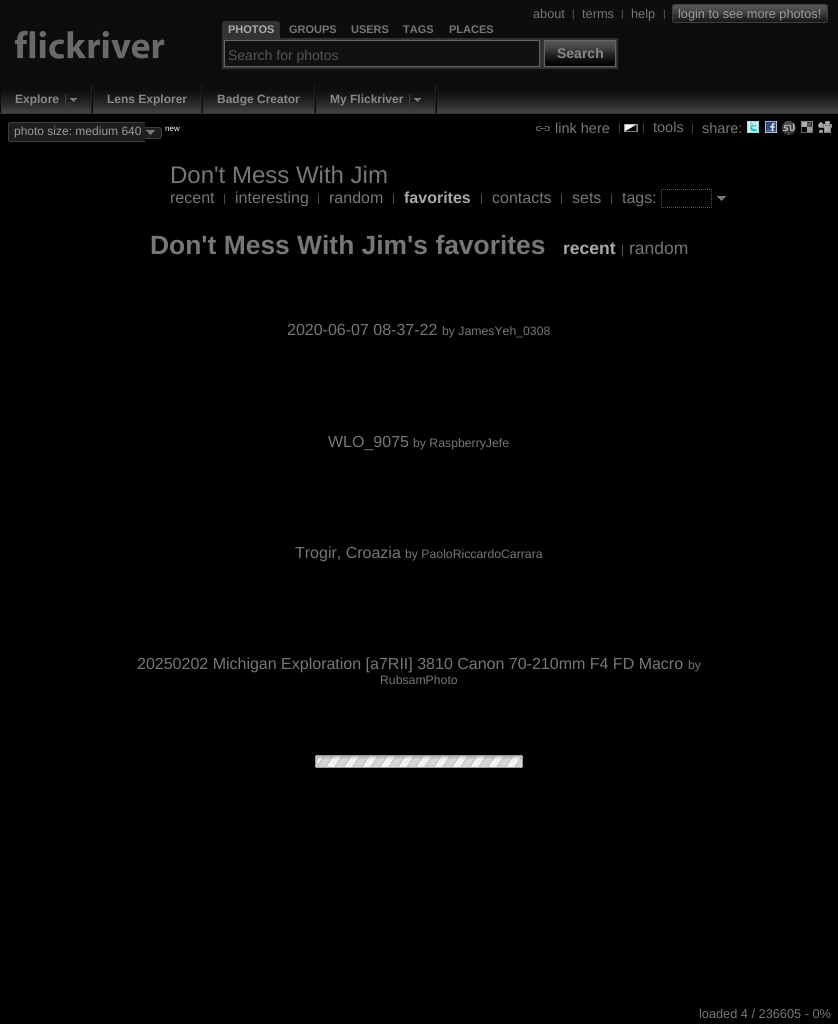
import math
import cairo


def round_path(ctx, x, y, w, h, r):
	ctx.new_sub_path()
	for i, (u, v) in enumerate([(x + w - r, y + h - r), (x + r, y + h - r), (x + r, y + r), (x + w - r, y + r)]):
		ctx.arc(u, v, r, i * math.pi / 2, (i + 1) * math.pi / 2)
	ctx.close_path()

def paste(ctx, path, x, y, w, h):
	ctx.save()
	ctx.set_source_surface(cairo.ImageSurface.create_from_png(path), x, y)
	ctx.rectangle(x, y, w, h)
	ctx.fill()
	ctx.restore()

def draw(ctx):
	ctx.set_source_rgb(0, 0, 0)
	ctx.paint()
	ctx.set_source_rgb(0.051, 0.051, 0.051)
	ctx.rectangle(0, 0, 838, 85)
	ctx.fill()
	ctx.select_font_face('Liberation Sans')
	ctx.set_font_size(12.75)
	ctx.set_source_rgb(0.467, 0.467, 0.467)
	ctx.move_to(533, 18)
	ctx.show_text('about')
	ctx.move_to(631, 18)
	ctx.show_text('help')
	paste(ctx, 'media/1.png', 672, 5, 156, 18)
	ctx.set_font_size(10)
	ctx.set_source_rgb(0.4, 0.4, 0.4)
	ctx.move_to(572, 17)
	ctx.show_text('|')
	ctx.set_font_size(12.75)
	ctx.set_source_rgb(0.467, 0.467, 0.467)
	ctx.move_to(582, 18)
	ctx.show_text('terms')
	ctx.set_font_size(10)
	ctx.set_source_rgb(0.4, 0.4, 0.4)
	ctx.move_to(621, 17)
	ctx.show_text('|')
	ctx.move_to(663, 17)
	ctx.show_text('|')
	round_path(ctx, 672.5, 4.5, 155, 18, 2.5)
	ctx.set_source_rgb(0.247, 0.247, 0.247)
	ctx.set_line_width(1)
	ctx.stroke()
	ctx.set_font_size(12.75)
	ctx.set_source_rgb(0.6, 0.6, 0.6)
	ctx.move_to(678, 18)
	ctx.show_text('login to see more photos!')
	paste(ctx, 'media/2.png', 14, 30, 151, 29)
	ctx.set_source_rgb(0.2, 0.2, 0.2)
	ctx.new_path()
	ctx.move_to(225, 21)
	ctx.line_to(277, 21)
	ctx.curve_to(278.5, 21, 280, 22.5, 280, 24)
	ctx.line_to(280, 38)
	ctx.line_to(222, 38)
	ctx.line_to(222, 24)
	ctx.curve_to(222, 22.5, 223.5, 21, 225, 21)
	ctx.close_path()
	ctx.fill()
	ctx.select_font_face('Liberation Sans', cairo.FONT_SLANT_NORMAL, cairo.FONT_WEIGHT_BOLD)
	ctx.set_font_size(11)
	ctx.set_source_rgb(0.667, 0.667, 0.667)
	ctx.move_to(228, 33)
	ctx.show_text('PHOTOS')
	ctx.set_source_rgb(0.467, 0.467, 0.467)
	for x, y, s in [
		(289, 33, 'GROUPS'),
		(351, 33, 'USERS'),
		(403, 33, 'TAGS'),
		(449, 33, 'PLACES'),
	]:
		ctx.move_to(x, y)
		ctx.show_text(s)
	ctx.set_source_rgb(0.2, 0.2, 0.2)
	ctx.rectangle(222, 38, 396, 31)
	ctx.fill()
	ctx.set_source_rgb(0.067, 0.067, 0.067)
	ctx.rectangle(224.5, 40.5, 315, 26)
	ctx.fill_preserve()
	ctx.set_source_rgb(0.4, 0.4, 0.4)
	ctx.stroke()
	ctx.select_font_face('Liberation Sans')
	ctx.set_font_size(14)
	ctx.set_source_rgb(0.333, 0.333, 0.333)
	ctx.move_to(228, 60)
	ctx.show_text('Search for photos')
	ctx.set_source_rgb(0, 0, 0)
	ctx.rectangle(545, 64, 70, 2)
	ctx.fill()
	ctx.rectangle(544.5, 40.5, 71, 26)
	ctx.set_source_rgb(0.4, 0.4, 0.4)
	ctx.stroke()
	paste(ctx, 'media/3.png', 545, 41, 70, 23)
	ctx.select_font_face('Liberation Sans', cairo.FONT_SLANT_NORMAL, cairo.FONT_WEIGHT_BOLD)
	ctx.set_source_rgb(0.533, 0.533, 0.533)
	ctx.move_to(557, 58)
	ctx.show_text('Search')
	ctx.set_source_rgb(0.051, 0.051, 0.051)
	ctx.rectangle(1, 85, 837, 6)
	ctx.fill()
	paste(ctx, 'media/4.png', 1, 91, 837, 22)
	ctx.set_source_rgb(0.2, 0.2, 0.2)
	ctx.rectangle(0, 113, 838, 1)
	ctx.fill()
	ctx.set_source_rgb(0.043, 0.043, 0.043)
	ctx.rectangle(436, 85, 1, 28)
	ctx.fill()
	ctx.set_source_rgb(0.129, 0.129, 0.129)
	ctx.rectangle(91, 85, 1, 28)
	ctx.fill()
	ctx.set_source_rgb(0.043, 0.043, 0.043)
	ctx.rectangle(0, 85, 1, 28)
	ctx.fill()
	ctx.set_font_size(12)
	ctx.set_source_rgb(0.533, 0.533, 0.533)
	ctx.move_to(15, 103)
	ctx.show_text('Explore')
	paste(ctx, 'media/5.png', 65, 94, 12, 12)
	ctx.set_source_rgb(0.129, 0.129, 0.129)
	ctx.rectangle(201, 85, 1, 28)
	ctx.fill()
	ctx.set_source_rgb(0.043, 0.043, 0.043)
	ctx.rectangle(92, 85, 1, 28)
	ctx.fill()
	ctx.set_source_rgb(0.533, 0.533, 0.533)
	ctx.move_to(107, 103)
	ctx.show_text('Lens Explorer')
	ctx.set_source_rgb(0.129, 0.129, 0.129)
	ctx.rectangle(314, 85, 1, 28)
	ctx.fill()
	ctx.set_source_rgb(0.043, 0.043, 0.043)
	ctx.rectangle(202, 85, 1, 28)
	ctx.fill()
	ctx.set_source_rgb(0.533, 0.533, 0.533)
	ctx.move_to(217, 103)
	ctx.show_text('Badge Creator')
	ctx.set_source_rgb(0.129, 0.129, 0.129)
	ctx.rectangle(435, 85, 1, 28)
	ctx.fill()
	ctx.set_source_rgb(0.043, 0.043, 0.043)
	ctx.rectangle(315, 85, 1, 28)
	ctx.fill()
	ctx.set_source_rgb(0.533, 0.533, 0.533)
	ctx.move_to(330, 103)
	ctx.show_text('My Flickriver')
	paste(ctx, 'media/5.png', 409, 94, 12, 12)
	ctx.set_source_rgb(0.118, 0.118, 0.118)
	ctx.new_path()
	ctx.move_to(11, 122)
	ctx.line_to(141, 122)
	ctx.line_to(141, 142)
	ctx.line_to(11, 142)
	ctx.curve_to(9.5, 142, 8, 140.5, 8, 139)
	ctx.line_to(8, 125)
	ctx.curve_to(8, 123.5, 9.5, 122, 11, 122)
	ctx.close_path()
	ctx.fill()
	ctx.set_source_rgb(0.247, 0.247, 0.247)
	ctx.set_fill_rule(cairo.FILL_RULE_EVEN_ODD)
	ctx.new_path()
	ctx.move_to(11, 122)
	ctx.line_to(141, 122)
	ctx.line_to(141, 142)
	ctx.line_to(11, 142)
	ctx.curve_to(9, 142, 8, 141, 8, 139)
	ctx.line_to(8, 125)
	ctx.curve_to(8, 123, 9, 122, 11, 122)
	ctx.close_path()
	ctx.move_to(11, 123)
	ctx.line_to(141, 123)
	ctx.line_to(141, 141)
	ctx.line_to(10, 141)
	ctx.line_to(9, 140)
	ctx.line_to(9, 132)
	ctx.curve_to(9, 130, 8, 123, 11, 123)
	ctx.close_path()
	ctx.fill()
	ctx.select_font_face('Liberation Sans')
	ctx.set_source_rgb(0.6, 0.6, 0.6)
	ctx.move_to(14, 135)
	ctx.show_text('photo size: medium 640')
	ctx.set_source_rgb(0.118, 0.118, 0.118)
	ctx.rectangle(141, 122, 4, 20)
	ctx.fill()
	ctx.set_source_rgb(0.247, 0.247, 0.247)
	ctx.rectangle(141, 122, 4, 1)
	ctx.rectangle(141, 141, 4, 1)
	ctx.fill()
	ctx.set_source_rgb(0.118, 0.118, 0.118)
	ctx.new_path()
	ctx.move_to(145, 127)
	ctx.line_to(159, 127)
	ctx.curve_to(160.5, 127, 162, 128.5, 162, 130)
	ctx.line_to(162, 136)
	ctx.curve_to(162, 137.5, 160.5, 139, 159, 139)
	ctx.line_to(145, 139)
	ctx.close_path()
	ctx.fill()
	ctx.set_source_rgb(0.247, 0.247, 0.247)
	ctx.new_path()
	ctx.move_to(145, 127)
	ctx.line_to(154.5, 127)
	ctx.curve_to(161, 127, 162, 126.5, 162, 133)
	ctx.curve_to(162, 139.5, 161, 139, 154.5, 139)
	ctx.line_to(145, 139)
	ctx.close_path()
	ctx.move_to(145, 128)
	ctx.line_to(154.5, 128)
	ctx.curve_to(160.5, 128, 161, 127, 161, 133)
	ctx.curve_to(161, 139, 160.5, 138, 154.5, 138)
	ctx.line_to(145, 138)
	ctx.close_path()
	ctx.fill()
	ctx.set_font_size(8)
	ctx.set_source_rgb(1, 1, 1)
	ctx.move_to(165, 131)
	ctx.show_text('new')
	paste(ctx, 'media/6.png', 146, 130, 9, 5)
	paste(ctx, 'media/7.png', 536, 126, 14, 5)
	ctx.set_font_size(14.5)
	ctx.set_source_rgb(0.467, 0.467, 0.467)
	ctx.move_to(555, 133)
	ctx.show_text('link here')
	ctx.set_font_size(10)
	ctx.set_source_rgb(0.333, 0.333, 0.333)
	ctx.move_to(618, 131)
	ctx.show_text('|')
	paste(ctx, 'media/8.png', 624, 124, 14, 8)
	ctx.move_to(642, 131)
	ctx.show_text('|')
	ctx.set_font_size(14.5)
	ctx.set_source_rgb(0.467, 0.467, 0.467)
	ctx.move_to(653, 132)
	ctx.show_text('tools')
	ctx.set_font_size(10)
	ctx.set_source_rgb(0.333, 0.333, 0.333)
	ctx.move_to(691, 131)
	ctx.show_text('|')
	ctx.set_font_size(14.5)
	ctx.set_source_rgb(0.467, 0.467, 0.467)
	ctx.move_to(702, 133)
	ctx.show_text('share:')
	paste(ctx, 'media/9.png', 747, 121, 12, 12)
	paste(ctx, 'media/10.png', 765, 121, 12, 12)
	paste(ctx, 'media/11.png', 782, 121, 14, 14)
	paste(ctx, 'media/12.png', 801, 121, 12, 12)
	paste(ctx, 'media/13.png', 818, 121, 14, 12)
	ctx.set_font_size(24)
	ctx.move_to(170, 183)
	ctx.show_text('Don\'t Mess With Jim')
	ctx.set_font_size(16)
	ctx.move_to(170, 203)
	ctx.show_text('recent')
	ctx.set_font_size(11)
	ctx.set_source_rgb(0.333, 0.333, 0.333)
	ctx.move_to(223, 202)
	ctx.show_text('|')
	ctx.set_font_size(16)
	ctx.set_source_rgb(0.467, 0.467, 0.467)
	ctx.move_to(235, 203)
	ctx.show_text('interesting')
	ctx.set_font_size(11)
	ctx.set_source_rgb(0.333, 0.333, 0.333)
	ctx.move_to(317, 202)
	ctx.show_text('|')
	ctx.set_font_size(16)
	ctx.set_source_rgb(0.467, 0.467, 0.467)
	ctx.move_to(329, 203)
	ctx.show_text('random')
	ctx.set_font_size(11)
	ctx.set_source_rgb(0.333, 0.333, 0.333)
	ctx.move_to(392, 202)
	ctx.show_text('|')
	ctx.select_font_face('Liberation Sans', cairo.FONT_SLANT_NORMAL, cairo.FONT_WEIGHT_BOLD)
	ctx.set_font_size(16)
	ctx.set_source_rgb(0.667, 0.667, 0.667)
	ctx.move_to(404, 203)
	ctx.show_text('favorites')
	ctx.select_font_face('Liberation Sans')
	ctx.set_font_size(11)
	ctx.set_source_rgb(0.333, 0.333, 0.333)
	ctx.move_to(480, 202)
	ctx.show_text('|')
	ctx.set_font_size(16)
	ctx.set_source_rgb(0.467, 0.467, 0.467)
	ctx.move_to(492, 203)
	ctx.show_text('contacts')
	ctx.set_font_size(11)
	ctx.set_source_rgb(0.333, 0.333, 0.333)
	ctx.move_to(560, 202)
	ctx.show_text('|')
	ctx.set_font_size(16)
	ctx.set_source_rgb(0.467, 0.467, 0.467)
	ctx.move_to(572, 203)
	ctx.show_text('sets')
	ctx.set_font_size(11)
	ctx.set_source_rgb(0.333, 0.333, 0.333)
	ctx.move_to(610, 202)
	ctx.show_text('|')
	ctx.set_font_size(16)
	ctx.set_source_rgb(0.467, 0.467, 0.467)
	ctx.move_to(622, 203)
	ctx.show_text('tags:')
	ctx.new_path()
	ctx.move_to(661, 189.5)
	ctx.line_to(712, 189.5)
	ctx.move_to(711.5, 189)
	ctx.line_to(711.5, 208)
	ctx.move_to(661, 207.5)
	ctx.line_to(712, 207.5)
	ctx.move_to(661.5, 189)
	ctx.line_to(661.5, 208)
	ctx.set_source_rgb(0.333, 0.333, 0.333)
	ctx.set_dash([1, 1])
	ctx.stroke()
	paste(ctx, 'media/14.png', 717, 196, 9, 5)
	ctx.select_font_face('Liberation Sans', cairo.FONT_SLANT_NORMAL, cairo.FONT_WEIGHT_BOLD)
	ctx.set_font_size(26.4)
	ctx.set_source_rgb(0.467, 0.467, 0.467)
	ctx.move_to(150, 254)
	ctx.show_text('Don\'t Mess With Jim\'s favorites')
	ctx.set_font_size(17.5)
	ctx.set_source_rgb(0.667, 0.667, 0.667)
	ctx.move_to(563, 254)
	ctx.show_text('recent')
	ctx.select_font_face('Liberation Sans')
	ctx.set_font_size(12.25)
	ctx.set_source_rgb(0.333, 0.333, 0.333)
	ctx.move_to(621, 254)
	ctx.show_text('|')
	ctx.set_font_size(17.5)
	ctx.set_source_rgb(0.467, 0.467, 0.467)
	ctx.move_to(629, 254)
	ctx.show_text('random')
	ctx.set_font_size(16)
	ctx.move_to(287, 335)
	ctx.show_text('2020-06-07 08-37-22')
	ctx.set_font_size(12.25)
	ctx.move_to(442, 335)
	ctx.show_text('by JamesYeh_0308')
	ctx.set_font_size(16)
	ctx.move_to(328, 447)
	ctx.show_text('WLO_9075')
	ctx.set_font_size(12.25)
	ctx.move_to(413, 447)
	ctx.show_text('by RaspberryJefe')
	ctx.set_font_size(16)
	ctx.move_to(295, 558)
	ctx.show_text('Trogir, Croazia')
	ctx.set_font_size(12.25)
	ctx.move_to(405, 558)
	ctx.show_text('by PaoloRiccardoCarrara')
	ctx.set_font_size(16)
	ctx.move_to(137, 669)
	ctx.show_text('20250202 Michigan Exploration [a7RII] 3810 Canon 70-210mm F4 FD Macro')
	ctx.set_font_size(12.25)
	ctx.move_to(688, 669)
	ctx.show_text('by')
	ctx.move_to(380, 684)
	ctx.show_text('RubsamPhoto')
	paste(ctx, 'media/15.png', 315, 755, 208, 13)
	ctx.set_font_size(12.75)
	ctx.move_to(699, 1018)
	ctx.show_text('loaded 4 / 236605 - 0%')


surface = cairo.ImageSurface(cairo.FORMAT_RGB24, 838, 1024)
ctx = cairo.Context(surface)
options = cairo.FontOptions()
options.set_hint_metrics(cairo.HINT_METRICS_OFF)
options.set_hint_style(cairo.HINT_STYLE_NONE)
ctx.set_font_options(options)
ctx.set_miter_limit(4)
draw(ctx)
surface.write_to_png('image.png')
